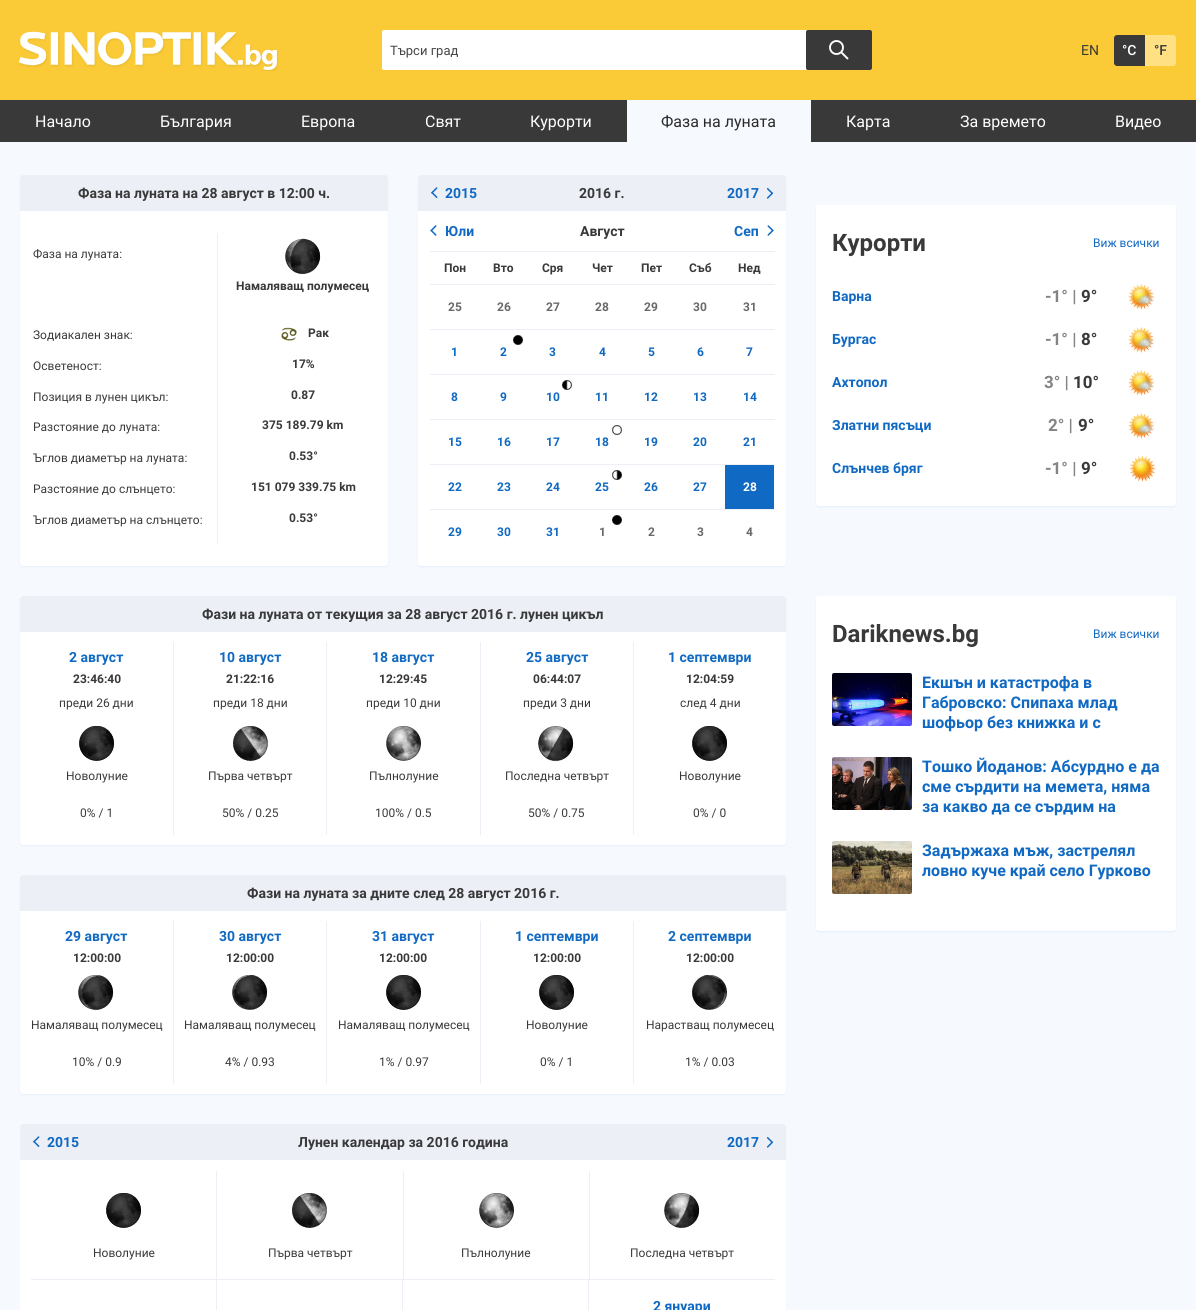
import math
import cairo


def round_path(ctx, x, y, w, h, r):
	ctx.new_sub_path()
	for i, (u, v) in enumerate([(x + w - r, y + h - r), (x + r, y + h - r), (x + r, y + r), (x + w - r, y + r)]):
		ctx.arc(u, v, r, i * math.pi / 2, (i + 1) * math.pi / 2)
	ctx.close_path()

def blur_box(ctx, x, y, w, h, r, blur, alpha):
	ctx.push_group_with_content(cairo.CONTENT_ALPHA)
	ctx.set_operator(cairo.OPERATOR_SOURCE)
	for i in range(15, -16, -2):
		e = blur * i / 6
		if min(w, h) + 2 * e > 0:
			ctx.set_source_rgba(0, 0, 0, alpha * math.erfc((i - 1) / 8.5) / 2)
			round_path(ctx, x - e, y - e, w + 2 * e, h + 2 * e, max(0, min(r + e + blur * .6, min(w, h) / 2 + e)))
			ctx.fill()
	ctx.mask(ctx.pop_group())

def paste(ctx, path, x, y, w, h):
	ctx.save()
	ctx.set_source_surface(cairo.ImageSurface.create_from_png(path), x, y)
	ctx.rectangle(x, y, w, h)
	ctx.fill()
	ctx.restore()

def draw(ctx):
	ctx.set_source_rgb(0.961, 0.973, 0.992)
	ctx.paint()
	ctx.set_source_rgb(0.98, 0.792, 0.216)
	ctx.rectangle(0, 0, 1196, 100)
	ctx.fill()
	paste(ctx, 'media/1.png', 19, 31, 259, 40)
	ctx.set_source_rgb(1, 1, 1)
	round_path(ctx, 382, 30, 490, 40, 2)
	ctx.fill()
	ctx.select_font_face('Roboto')
	ctx.set_font_size(13)
	ctx.set_source_rgb(0.271, 0.271, 0.271)
	ctx.move_to(390, 55)
	ctx.show_text('Търси град')
	ctx.set_source_rgb(0.224, 0.224, 0.224)
	round_path(ctx, 806, 30, 66, 40, 2)
	ctx.fill()
	ctx.arc(836.5, 47.5, 6.5, 0, 2 * math.pi)
	ctx.set_source_rgb(1, 1, 1)
	ctx.set_line_width(1.9)
	ctx.stroke()
	ctx.new_path()
	ctx.move_to(842, 53)
	ctx.line_to(847.5, 58.5)
	ctx.set_line_cap(cairo.LINE_CAP_ROUND)
	ctx.stroke()
	ctx.set_font_size(14)
	ctx.set_source_rgb(0.224, 0.224, 0.224)
	ctx.move_to(1081, 55)
	ctx.show_text('EN')
	ctx.new_path()
	ctx.move_to(1117, 35)
	ctx.line_to(1145, 35)
	ctx.line_to(1145, 66)
	ctx.line_to(1117, 66)
	ctx.curve_to(1115.5, 66, 1114, 64.5, 1114, 63)
	ctx.line_to(1114, 38)
	ctx.curve_to(1114, 36.5, 1115.5, 35, 1117, 35)
	ctx.close_path()
	ctx.fill()
	ctx.select_font_face('Roboto Medium')
	ctx.set_source_rgb(1, 1, 1)
	ctx.move_to(1122, 55)
	ctx.show_text('°C')
	ctx.set_source_rgb(1, 0.878, 0.514)
	ctx.new_path()
	ctx.move_to(1145, 35)
	ctx.line_to(1173, 35)
	ctx.curve_to(1174.5, 35, 1176, 36.5, 1176, 38)
	ctx.line_to(1176, 63)
	ctx.curve_to(1176, 64.5, 1174.5, 66, 1173, 66)
	ctx.line_to(1145, 66)
	ctx.close_path()
	ctx.fill()
	ctx.set_source_rgb(0.224, 0.224, 0.224)
	ctx.move_to(1154, 55)
	ctx.show_text('°F')
	ctx.rectangle(0, 100, 1196, 42)
	ctx.fill()
	ctx.select_font_face('Roboto')
	ctx.set_font_size(16)
	ctx.set_source_rgb(1, 1, 1)
	for x, y, s in [
		(35, 127, 'Начало'),
		(160, 127, 'България'),
		(301, 127, 'Европа'),
		(425, 127, 'Свят'),
		(530, 127, 'Курорти'),
	]:
		ctx.move_to(x, y)
		ctx.show_text(s)
	ctx.set_source_rgb(0.961, 0.973, 0.992)
	ctx.rectangle(627, 100, 184, 42)
	ctx.fill()
	ctx.set_source_rgb(0.165, 0.165, 0.165)
	ctx.move_to(661, 127)
	ctx.show_text('Фаза на луната')
	ctx.set_source_rgb(1, 1, 1)
	for x, y, s in [
		(846, 127, 'Карта'),
		(960, 127, 'За времето'),
		(1115, 127, 'Видео'),
	]:
		ctx.move_to(x, y)
		ctx.show_text(s)
	ctx.set_source_rgb(0.675, 0.776, 0.969)
	blur_box(ctx, 20, 176, 368, 391, 3, 0.5, 0.19)
	ctx.set_source_rgb(1, 1, 1)
	round_path(ctx, 20, 175, 368, 391, 3)
	ctx.fill()
	ctx.set_source_rgb(0.925, 0.937, 0.961)
	ctx.new_path()
	ctx.move_to(23, 175)
	ctx.line_to(385, 175)
	ctx.curve_to(386.5, 175, 388, 176.5, 388, 178)
	ctx.line_to(388, 211)
	ctx.line_to(20, 211)
	ctx.line_to(20, 178)
	ctx.curve_to(20, 176.5, 21.5, 175, 23, 175)
	ctx.close_path()
	ctx.fill()
	ctx.select_font_face('Roboto', cairo.FONT_SLANT_NORMAL, cairo.FONT_WEIGHT_BOLD)
	ctx.set_font_size(14)
	ctx.set_source_rgb(0.224, 0.224, 0.224)
	ctx.move_to(78, 198)
	ctx.show_text('Фаза на луната на 28 август в 12:00 ч.')
	ctx.select_font_face('Roboto')
	ctx.set_font_size(12)
	for x, y, s in [
		(33, 258, 'Фаза на луната:'),
		(33, 339, 'Зодиакален знак:'),
		(33, 370, 'Осветеност:'),
		(33, 401, 'Позиция в лунен цикъл:'),
		(33, 431, 'Разстояние до луната:'),
		(33, 462, 'Ъглов диаметър на луната:'),
		(33, 493, 'Разстояние до слънцето:'),
		(33, 524, 'Ъглов диаметър на слънцето:'),
	]:
		ctx.move_to(x, y)
		ctx.show_text(s)
	ctx.set_source_rgb(0.925, 0.937, 0.961)
	ctx.rectangle(217, 233, 1, 311)
	ctx.fill()
	paste(ctx, 'media/2.png', 285, 238, 36, 37)
	ctx.select_font_face('Roboto', cairo.FONT_SLANT_NORMAL, cairo.FONT_WEIGHT_BOLD)
	ctx.set_source_rgb(0.224, 0.224, 0.224)
	ctx.move_to(236, 290)
	ctx.show_text('Намаляващ полумесец')
	paste(ctx, 'media/3.png', 281, 327, 16, 14)
	for x, y, s in [
		(308, 337, 'Рак'),
		(292, 368, '17%'),
		(291, 399, '0.87'),
		(262, 429, '375 189.79 km'),
		(289, 460, '0.53°'),
		(251, 491, '151 079 339.75 km'),
		(289, 522, '0.53°'),
	]:
		ctx.move_to(x, y)
		ctx.show_text(s)
	ctx.set_source_rgb(0.675, 0.776, 0.969)
	blur_box(ctx, 418, 176, 368, 391, 3, 0.5, 0.19)
	ctx.set_source_rgb(1, 1, 1)
	round_path(ctx, 418, 175, 368, 391, 3)
	ctx.fill()
	ctx.set_source_rgb(0.925, 0.937, 0.961)
	ctx.new_path()
	ctx.move_to(421, 175)
	ctx.line_to(783, 175)
	ctx.curve_to(784.5, 175, 786, 176.5, 786, 178)
	ctx.line_to(786, 211)
	ctx.line_to(418, 211)
	ctx.line_to(418, 178)
	ctx.curve_to(418, 176.5, 419.5, 175, 421, 175)
	ctx.close_path()
	ctx.fill()
	paste(ctx, 'media/4.png', 431, 187, 7, 11)
	ctx.set_font_size(14)
	ctx.set_source_rgb(0.063, 0.412, 0.761)
	ctx.move_to(445, 198)
	ctx.show_text('2015')
	ctx.set_source_rgb(0.224, 0.224, 0.224)
	ctx.move_to(579, 198)
	ctx.show_text('2016 г.')
	ctx.set_source_rgb(0.063, 0.412, 0.761)
	ctx.move_to(727, 198)
	ctx.show_text('2017')
	paste(ctx, 'media/5.png', 766, 188, 7, 11)
	paste(ctx, 'media/6.png', 430, 225, 7, 11)
	ctx.move_to(445, 236)
	ctx.show_text('Юли')
	ctx.set_source_rgb(0.224, 0.224, 0.224)
	ctx.move_to(580, 236)
	ctx.show_text('Август')
	ctx.set_source_rgb(0.063, 0.412, 0.761)
	ctx.move_to(734, 236)
	ctx.show_text('Сеп')
	paste(ctx, 'media/7.png', 767, 225, 7, 11)
	ctx.set_font_size(12)
	ctx.set_source_rgb(0.224, 0.224, 0.224)
	for x, y, s in [
		(444, 272, 'Пон'),
		(493, 272, 'Вто'),
		(542, 272, 'Сря'),
		(592, 272, 'Чет'),
		(641, 272, 'Пет'),
		(689, 272, 'Съб'),
	]:
		ctx.move_to(x, y)
		ctx.show_text(s)
	ctx.set_source_rgb(0.925, 0.937, 0.961)
	ctx.rectangle(430, 251, 345, 1)
	ctx.fill()
	ctx.set_source_rgb(0.224, 0.224, 0.224)
	ctx.move_to(738, 272)
	ctx.show_text('Нед')
	ctx.set_source_rgb(0.412, 0.412, 0.412)
	for x, y, s in [
		(448, 311, '25'),
		(497, 311, '26'),
		(546, 311, '27'),
		(595, 311, '28'),
		(644, 311, '29'),
		(693, 311, '30'),
	]:
		ctx.move_to(x, y)
		ctx.show_text(s)
	ctx.set_source_rgb(0.925, 0.937, 0.961)
	ctx.rectangle(430, 284, 345, 1)
	ctx.fill()
	ctx.set_source_rgb(0.412, 0.412, 0.412)
	ctx.move_to(743, 311)
	ctx.show_text('31')
	ctx.set_source_rgb(0.063, 0.412, 0.761)
	ctx.move_to(451, 356)
	ctx.show_text('1')
	paste(ctx, 'media/8.png', 513, 335, 10, 10)
	for x, y, s in [
		(500, 356, '2'),
		(549, 356, '3'),
		(599, 356, '4'),
		(648, 356, '5'),
		(697, 356, '6'),
	]:
		ctx.move_to(x, y)
		ctx.show_text(s)
	ctx.set_source_rgb(0.925, 0.937, 0.961)
	ctx.rectangle(430, 329, 345, 1)
	ctx.fill()
	ctx.set_source_rgb(0.063, 0.412, 0.761)
	for x, y, s in [
		(746, 356, '7'),
		(451, 401, '8'),
		(500, 401, '9'),
	]:
		ctx.move_to(x, y)
		ctx.show_text(s)
	paste(ctx, 'media/9.png', 562, 380, 10, 10)
	for x, y, s in [
		(546, 401, '10'),
		(595, 401, '11'),
		(644, 401, '12'),
		(693, 401, '13'),
	]:
		ctx.move_to(x, y)
		ctx.show_text(s)
	ctx.set_source_rgb(0.925, 0.937, 0.961)
	ctx.rectangle(430, 374, 345, 1)
	ctx.fill()
	ctx.set_source_rgb(0.063, 0.412, 0.761)
	for x, y, s in [
		(743, 401, '14'),
		(448, 446, '15'),
		(497, 446, '16'),
		(546, 446, '17'),
	]:
		ctx.move_to(x, y)
		ctx.show_text(s)
	paste(ctx, 'media/10.png', 612, 425, 10, 10)
	for x, y, s in [
		(595, 446, '18'),
		(644, 446, '19'),
		(693, 446, '20'),
	]:
		ctx.move_to(x, y)
		ctx.show_text(s)
	ctx.set_source_rgb(0.925, 0.937, 0.961)
	ctx.rectangle(430, 419, 345, 1)
	ctx.fill()
	ctx.set_source_rgb(0.063, 0.412, 0.761)
	for x, y, s in [
		(743, 446, '21'),
		(448, 491, '22'),
		(497, 491, '23'),
		(546, 491, '24'),
	]:
		ctx.move_to(x, y)
		ctx.show_text(s)
	paste(ctx, 'media/11.png', 612, 470, 10, 10)
	for x, y, s in [
		(595, 491, '25'),
		(644, 491, '26'),
		(693, 491, '27'),
	]:
		ctx.move_to(x, y)
		ctx.show_text(s)
	ctx.rectangle(725, 465, 49, 44)
	ctx.fill()
	ctx.set_source_rgb(0.925, 0.937, 0.961)
	ctx.rectangle(430, 464, 345, 1)
	ctx.fill()
	ctx.set_source_rgb(1, 1, 1)
	ctx.move_to(743, 491)
	ctx.show_text('28')
	ctx.set_source_rgb(0.063, 0.412, 0.761)
	for x, y, s in [
		(448, 536, '29'),
		(497, 536, '30'),
		(546, 536, '31'),
	]:
		ctx.move_to(x, y)
		ctx.show_text(s)
	paste(ctx, 'media/8.png', 612, 515, 10, 10)
	ctx.set_source_rgb(0.412, 0.412, 0.412)
	for x, y, s in [
		(599, 536, '1'),
		(648, 536, '2'),
		(697, 536, '3'),
	]:
		ctx.move_to(x, y)
		ctx.show_text(s)
	ctx.set_source_rgb(0.925, 0.937, 0.961)
	ctx.rectangle(430, 509, 345, 1)
	ctx.fill()
	ctx.set_source_rgb(0.412, 0.412, 0.412)
	ctx.move_to(746, 536)
	ctx.show_text('4')
	ctx.set_source_rgb(0.675, 0.776, 0.969)
	blur_box(ctx, 20, 597, 766, 249, 3, 0.5, 0.19)
	ctx.set_source_rgb(1, 1, 1)
	round_path(ctx, 20, 596, 766, 249, 3)
	ctx.fill()
	ctx.set_source_rgb(0.925, 0.937, 0.961)
	ctx.new_path()
	ctx.move_to(23, 596)
	ctx.line_to(783, 596)
	ctx.curve_to(784.5, 596, 786, 597.5, 786, 599)
	ctx.line_to(786, 632)
	ctx.line_to(20, 632)
	ctx.line_to(20, 599)
	ctx.curve_to(20, 597.5, 21.5, 596, 23, 596)
	ctx.close_path()
	ctx.fill()
	ctx.set_font_size(14)
	ctx.set_source_rgb(0.224, 0.224, 0.224)
	ctx.move_to(202, 619)
	ctx.show_text('Фази на луната от текущия за 28 август 2016 г. лунен цикъл')
	ctx.set_source_rgb(0.063, 0.412, 0.761)
	ctx.move_to(69, 662)
	ctx.show_text('2 август')
	ctx.set_font_size(12)
	ctx.set_source_rgb(0.224, 0.224, 0.224)
	ctx.move_to(73, 683)
	ctx.show_text('23:46:40')
	ctx.select_font_face('Roboto')
	ctx.move_to(59, 707)
	ctx.show_text('преди 26 дни')
	paste(ctx, 'media/12.png', 79, 726, 35, 35)
	ctx.move_to(66, 780)
	ctx.show_text('Новолуние')
	ctx.move_to(80, 817)
	ctx.show_text('0% / 1')
	ctx.set_source_rgb(0.925, 0.937, 0.961)
	ctx.rectangle(173, 642, 1, 193)
	ctx.fill()
	ctx.select_font_face('Roboto', cairo.FONT_SLANT_NORMAL, cairo.FONT_WEIGHT_BOLD)
	ctx.set_font_size(14)
	ctx.set_source_rgb(0.063, 0.412, 0.761)
	ctx.move_to(219, 662)
	ctx.show_text('10 август')
	ctx.set_font_size(12)
	ctx.set_source_rgb(0.224, 0.224, 0.224)
	ctx.move_to(226, 683)
	ctx.show_text('21:22:16')
	ctx.select_font_face('Roboto')
	ctx.move_to(213, 707)
	ctx.show_text('преди 18 дни')
	paste(ctx, 'media/13.png', 232, 726, 36, 36)
	ctx.move_to(208, 780)
	ctx.show_text('Първа четвърт')
	ctx.move_to(222, 817)
	ctx.show_text('50% / 0.25')
	ctx.set_source_rgb(0.925, 0.937, 0.961)
	ctx.rectangle(326, 642, 1, 193)
	ctx.fill()
	ctx.select_font_face('Roboto', cairo.FONT_SLANT_NORMAL, cairo.FONT_WEIGHT_BOLD)
	ctx.set_font_size(14)
	ctx.set_source_rgb(0.063, 0.412, 0.761)
	ctx.move_to(372, 662)
	ctx.show_text('18 август')
	ctx.set_font_size(12)
	ctx.set_source_rgb(0.224, 0.224, 0.224)
	ctx.move_to(379, 683)
	ctx.show_text('12:29:45')
	ctx.select_font_face('Roboto')
	ctx.move_to(366, 707)
	ctx.show_text('преди 10 дни')
	paste(ctx, 'media/14.png', 386, 726, 35, 35)
	ctx.move_to(369, 780)
	ctx.show_text('Пълнолуние')
	ctx.move_to(375, 817)
	ctx.show_text('100% / 0.5')
	ctx.set_source_rgb(0.925, 0.937, 0.961)
	ctx.rectangle(480, 642, 1, 193)
	ctx.fill()
	ctx.select_font_face('Roboto', cairo.FONT_SLANT_NORMAL, cairo.FONT_WEIGHT_BOLD)
	ctx.set_font_size(14)
	ctx.set_source_rgb(0.063, 0.412, 0.761)
	ctx.move_to(526, 662)
	ctx.show_text('25 август')
	ctx.set_font_size(12)
	ctx.set_source_rgb(0.224, 0.224, 0.224)
	ctx.move_to(533, 683)
	ctx.show_text('06:44:07')
	ctx.select_font_face('Roboto')
	ctx.move_to(523, 707)
	ctx.show_text('преди 3 дни')
	paste(ctx, 'media/15.png', 538, 726, 36, 36)
	ctx.move_to(505, 780)
	ctx.show_text('Последна четвърт')
	ctx.move_to(528, 817)
	ctx.show_text('50% / 0.75')
	ctx.set_source_rgb(0.925, 0.937, 0.961)
	ctx.rectangle(633, 642, 1, 193)
	ctx.fill()
	ctx.select_font_face('Roboto', cairo.FONT_SLANT_NORMAL, cairo.FONT_WEIGHT_BOLD)
	ctx.set_font_size(14)
	ctx.set_source_rgb(0.063, 0.412, 0.761)
	ctx.move_to(668, 662)
	ctx.show_text('1 септември')
	ctx.set_font_size(12)
	ctx.set_source_rgb(0.224, 0.224, 0.224)
	ctx.move_to(686, 683)
	ctx.show_text('12:04:59')
	ctx.select_font_face('Roboto')
	ctx.move_to(680, 707)
	ctx.show_text('след 4 дни')
	paste(ctx, 'media/12.png', 692, 726, 35, 35)
	ctx.move_to(679, 780)
	ctx.show_text('Новолуние')
	ctx.move_to(693, 817)
	ctx.show_text('0% / 0')
	ctx.set_source_rgb(0.675, 0.776, 0.969)
	blur_box(ctx, 20, 876, 766, 219, 3, 0.5, 0.19)
	ctx.set_source_rgb(1, 1, 1)
	round_path(ctx, 20, 875, 766, 219, 3)
	ctx.fill()
	ctx.set_source_rgb(0.925, 0.937, 0.961)
	ctx.new_path()
	ctx.move_to(23, 875)
	ctx.line_to(783, 875)
	ctx.curve_to(784.5, 875, 786, 876.5, 786, 878)
	ctx.line_to(786, 911)
	ctx.line_to(20, 911)
	ctx.line_to(20, 878)
	ctx.curve_to(20, 876.5, 21.5, 875, 23, 875)
	ctx.close_path()
	ctx.fill()
	ctx.select_font_face('Roboto', cairo.FONT_SLANT_NORMAL, cairo.FONT_WEIGHT_BOLD)
	ctx.set_font_size(14)
	ctx.set_source_rgb(0.224, 0.224, 0.224)
	ctx.move_to(247, 898)
	ctx.show_text('Фази на луната за дните след 28 август 2016 г.')
	ctx.set_source_rgb(0.063, 0.412, 0.761)
	ctx.move_to(65, 941)
	ctx.show_text('29 август')
	ctx.set_font_size(12)
	ctx.set_source_rgb(0.224, 0.224, 0.224)
	ctx.move_to(73, 962)
	ctx.show_text('12:00:00')
	paste(ctx, 'media/16.png', 78, 975, 36, 36)
	ctx.select_font_face('Roboto')
	ctx.move_to(31, 1029)
	ctx.show_text('Намаляващ полумесец')
	ctx.move_to(72, 1066)
	ctx.show_text('10% / 0.9')
	ctx.set_source_rgb(0.925, 0.937, 0.961)
	ctx.rectangle(173, 921, 1, 163)
	ctx.fill()
	ctx.select_font_face('Roboto', cairo.FONT_SLANT_NORMAL, cairo.FONT_WEIGHT_BOLD)
	ctx.set_font_size(14)
	ctx.set_source_rgb(0.063, 0.412, 0.761)
	ctx.move_to(219, 941)
	ctx.show_text('30 август')
	ctx.set_font_size(12)
	ctx.set_source_rgb(0.224, 0.224, 0.224)
	ctx.move_to(226, 962)
	ctx.show_text('12:00:00')
	paste(ctx, 'media/17.png', 232, 975, 36, 35)
	ctx.select_font_face('Roboto')
	ctx.move_to(184, 1029)
	ctx.show_text('Намаляващ полумесец')
	ctx.move_to(225, 1066)
	ctx.show_text('4% / 0.93')
	ctx.set_source_rgb(0.925, 0.937, 0.961)
	ctx.rectangle(326, 921, 1, 163)
	ctx.fill()
	ctx.select_font_face('Roboto', cairo.FONT_SLANT_NORMAL, cairo.FONT_WEIGHT_BOLD)
	ctx.set_font_size(14)
	ctx.set_source_rgb(0.063, 0.412, 0.761)
	ctx.move_to(372, 941)
	ctx.show_text('31 август')
	ctx.set_font_size(12)
	ctx.set_source_rgb(0.224, 0.224, 0.224)
	ctx.move_to(379, 962)
	ctx.show_text('12:00:00')
	paste(ctx, 'media/12.png', 386, 975, 35, 35)
	ctx.select_font_face('Roboto')
	ctx.move_to(338, 1029)
	ctx.show_text('Намаляващ полумесец')
	ctx.move_to(379, 1066)
	ctx.show_text('1% / 0.97')
	ctx.set_source_rgb(0.925, 0.937, 0.961)
	ctx.rectangle(480, 921, 1, 163)
	ctx.fill()
	ctx.select_font_face('Roboto', cairo.FONT_SLANT_NORMAL, cairo.FONT_WEIGHT_BOLD)
	ctx.set_font_size(14)
	ctx.set_source_rgb(0.063, 0.412, 0.761)
	ctx.move_to(515, 941)
	ctx.show_text('1 септември')
	ctx.set_font_size(12)
	ctx.set_source_rgb(0.224, 0.224, 0.224)
	ctx.move_to(533, 962)
	ctx.show_text('12:00:00')
	paste(ctx, 'media/12.png', 539, 975, 35, 35)
	ctx.select_font_face('Roboto')
	ctx.move_to(526, 1029)
	ctx.show_text('Новолуние')
	ctx.move_to(540, 1066)
	ctx.show_text('0% / 1')
	ctx.set_source_rgb(0.925, 0.937, 0.961)
	ctx.rectangle(633, 921, 1, 163)
	ctx.fill()
	ctx.select_font_face('Roboto', cairo.FONT_SLANT_NORMAL, cairo.FONT_WEIGHT_BOLD)
	ctx.set_font_size(14)
	ctx.set_source_rgb(0.063, 0.412, 0.761)
	ctx.move_to(668, 941)
	ctx.show_text('2 септември')
	ctx.set_font_size(12)
	ctx.set_source_rgb(0.224, 0.224, 0.224)
	ctx.move_to(686, 962)
	ctx.show_text('12:00:00')
	paste(ctx, 'media/18.png', 691, 975, 36, 35)
	ctx.select_font_face('Roboto')
	ctx.move_to(646, 1029)
	ctx.show_text('Нарастващ полумесец')
	ctx.move_to(685, 1066)
	ctx.show_text('1% / 0.03')
	ctx.set_source_rgb(1, 1, 1)
	round_path(ctx, 20, 1124, 766, 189, 3)
	ctx.fill()
	ctx.set_source_rgb(0.925, 0.937, 0.961)
	ctx.new_path()
	ctx.move_to(23, 1124)
	ctx.line_to(783, 1124)
	ctx.curve_to(784.5, 1124, 786, 1125.5, 786, 1127)
	ctx.line_to(786, 1160)
	ctx.line_to(20, 1160)
	ctx.line_to(20, 1127)
	ctx.curve_to(20, 1125.5, 21.5, 1124, 23, 1124)
	ctx.close_path()
	ctx.fill()
	paste(ctx, 'media/4.png', 33, 1136, 7, 11)
	ctx.select_font_face('Roboto', cairo.FONT_SLANT_NORMAL, cairo.FONT_WEIGHT_BOLD)
	ctx.set_font_size(14)
	ctx.set_source_rgb(0.063, 0.412, 0.761)
	ctx.move_to(47, 1147)
	ctx.show_text('2015')
	ctx.set_source_rgb(0.224, 0.224, 0.224)
	ctx.move_to(298, 1147)
	ctx.show_text('Лунен календар за 2016 година')
	ctx.set_source_rgb(0.063, 0.412, 0.761)
	ctx.move_to(727, 1147)
	ctx.show_text('2017')
	paste(ctx, 'media/5.png', 766, 1137, 7, 11)
	ctx.set_source_rgb(0.925, 0.937, 0.961)
	ctx.rectangle(216, 1171, 1, 139)
	ctx.fill()
	ctx.rectangle(31, 1279, 186, 1)
	ctx.fill()
	paste(ctx, 'media/12.png', 106, 1193, 35, 35)
	ctx.select_font_face('Roboto')
	ctx.set_font_size(12)
	ctx.set_source_rgb(0.224, 0.224, 0.224)
	ctx.move_to(93, 1257)
	ctx.show_text('Новолуние')
	ctx.set_source_rgb(0.925, 0.937, 0.961)
	ctx.rectangle(403, 1171, 1, 109)
	ctx.fill()
	ctx.rectangle(217, 1279, 187, 1)
	ctx.fill()
	paste(ctx, 'media/13.png', 291, 1193, 36, 36)
	ctx.set_source_rgb(0.224, 0.224, 0.224)
	ctx.move_to(268, 1257)
	ctx.show_text('Първа четвърт')
	ctx.set_source_rgb(0.925, 0.937, 0.961)
	ctx.rectangle(589, 1171, 1, 109)
	ctx.fill()
	ctx.rectangle(404, 1279, 371, 1)
	ctx.fill()
	paste(ctx, 'media/14.png', 479, 1193, 35, 35)
	ctx.set_source_rgb(0.224, 0.224, 0.224)
	ctx.move_to(461, 1257)
	ctx.show_text('Пълнолуние')
	paste(ctx, 'media/19.png', 664, 1193, 36, 36)
	ctx.move_to(630, 1257)
	ctx.show_text('Последна четвърт')
	ctx.set_source_rgb(0.925, 0.937, 0.961)
	ctx.rectangle(402, 1280, 1, 30)
	ctx.fill()
	ctx.rectangle(588, 1280, 1, 30)
	ctx.fill()
	ctx.select_font_face('Roboto', cairo.FONT_SLANT_NORMAL, cairo.FONT_WEIGHT_BOLD)
	ctx.set_font_size(14)
	ctx.set_source_rgb(0.063, 0.412, 0.761)
	ctx.move_to(653, 1311)
	ctx.show_text('2 януари')
	ctx.set_source_rgb(0.675, 0.776, 0.969)
	blur_box(ctx, 816, 206, 360, 301, 3, 0.5, 0.19)
	ctx.set_source_rgb(1, 1, 1)
	round_path(ctx, 816, 205, 360, 301, 3)
	ctx.fill()
	ctx.set_font_size(24)
	ctx.set_source_rgb(0.224, 0.224, 0.224)
	ctx.move_to(832, 251)
	ctx.show_text('Курорти')
	ctx.select_font_face('Roboto')
	ctx.set_font_size(12)
	ctx.set_source_rgb(0.063, 0.412, 0.761)
	ctx.move_to(1093, 247)
	ctx.show_text('Виж всички')
	ctx.select_font_face('Roboto', cairo.FONT_SLANT_NORMAL, cairo.FONT_WEIGHT_BOLD)
	ctx.set_font_size(14)
	ctx.move_to(832, 301)
	ctx.show_text('Варна')
	ctx.set_font_size(17)
	ctx.set_source_rgb(0.518, 0.518, 0.518)
	ctx.move_to(1045, 302)
	ctx.show_text('-1° |')
	ctx.set_source_rgb(0.224, 0.224, 0.224)
	ctx.move_to(1081, 302)
	ctx.show_text('9°')
	paste(ctx, 'media/20.png', 1128, 284, 27, 26)
	ctx.set_font_size(14)
	ctx.set_source_rgb(0.063, 0.412, 0.761)
	ctx.move_to(832, 344)
	ctx.show_text('Бургас')
	ctx.set_font_size(17)
	ctx.set_source_rgb(0.518, 0.518, 0.518)
	ctx.move_to(1045, 345)
	ctx.show_text('-1° |')
	ctx.set_source_rgb(0.224, 0.224, 0.224)
	ctx.move_to(1081, 345)
	ctx.show_text('8°')
	paste(ctx, 'media/20.png', 1128, 327, 27, 26)
	ctx.set_font_size(14)
	ctx.set_source_rgb(0.063, 0.412, 0.761)
	ctx.move_to(832, 387)
	ctx.show_text('Ахтопол')
	ctx.set_font_size(17)
	ctx.set_source_rgb(0.518, 0.518, 0.518)
	ctx.move_to(1044, 388)
	ctx.show_text('3° |')
	ctx.set_source_rgb(0.224, 0.224, 0.224)
	ctx.move_to(1073, 388)
	ctx.show_text('10°')
	paste(ctx, 'media/20.png', 1128, 370, 27, 26)
	ctx.set_font_size(14)
	ctx.set_source_rgb(0.063, 0.412, 0.761)
	ctx.move_to(832, 430)
	ctx.show_text('Златни пясъци')
	ctx.set_font_size(17)
	ctx.set_source_rgb(0.518, 0.518, 0.518)
	ctx.move_to(1048, 431)
	ctx.show_text('2° |')
	ctx.set_source_rgb(0.224, 0.224, 0.224)
	ctx.move_to(1078, 431)
	ctx.show_text('9°')
	paste(ctx, 'media/20.png', 1128, 413, 27, 26)
	ctx.set_font_size(14)
	ctx.set_source_rgb(0.063, 0.412, 0.761)
	ctx.move_to(832, 473)
	ctx.show_text('Слънчев бряг')
	ctx.set_font_size(17)
	ctx.set_source_rgb(0.518, 0.518, 0.518)
	ctx.move_to(1045, 474)
	ctx.show_text('-1° |')
	ctx.set_source_rgb(0.224, 0.224, 0.224)
	ctx.move_to(1081, 474)
	ctx.show_text('9°')
	paste(ctx, 'media/21.png', 1129, 455, 27, 27)
	ctx.set_source_rgb(0.675, 0.776, 0.969)
	blur_box(ctx, 816, 597, 360, 335, 3, 0.5, 0.19)
	ctx.set_source_rgb(1, 1, 1)
	round_path(ctx, 816, 596, 360, 335, 3)
	ctx.fill()
	ctx.set_font_size(24)
	ctx.set_source_rgb(0.224, 0.224, 0.224)
	ctx.move_to(832, 642)
	ctx.show_text('Dariknews.bg')
	ctx.select_font_face('Roboto')
	ctx.set_font_size(12)
	ctx.set_source_rgb(0.063, 0.412, 0.761)
	ctx.move_to(1093, 638)
	ctx.show_text('Виж всички')
	paste(ctx, 'media/22.png', 832, 673, 80, 53)
	ctx.select_font_face('Roboto', cairo.FONT_SLANT_NORMAL, cairo.FONT_WEIGHT_BOLD)
	ctx.set_font_size(16)
	for x, y, s in [
		(922, 688, 'Екшън и катастрофа в'),
		(922, 708, 'Габровско: Спипаха млад'),
		(922, 728, 'шофьор без книжка и с'),
	]:
		ctx.move_to(x, y)
		ctx.show_text(s)
	paste(ctx, 'media/23.png', 832, 757, 80, 53)
	for x, y, s in [
		(922, 772, 'Тошко Йоданов: Абсурдно е да'),
		(922, 792, 'сме сърдити на мемета, няма'),
		(922, 812, 'за какво да се сърдим на'),
	]:
		ctx.move_to(x, y)
		ctx.show_text(s)
	paste(ctx, 'media/24.png', 832, 841, 80, 53)
	ctx.move_to(922, 856)
	ctx.show_text('Задържаха мъж, застрелял')
	ctx.move_to(922, 876)
	ctx.show_text('ловно куче край село Гурково')


surface = cairo.ImageSurface(cairo.FORMAT_RGB24, 1196, 1310)
ctx = cairo.Context(surface)
options = cairo.FontOptions()
options.set_hint_metrics(cairo.HINT_METRICS_OFF)
options.set_hint_style(cairo.HINT_STYLE_NONE)
ctx.set_font_options(options)
ctx.set_miter_limit(4)
draw(ctx)
surface.write_to_png('image.png')
